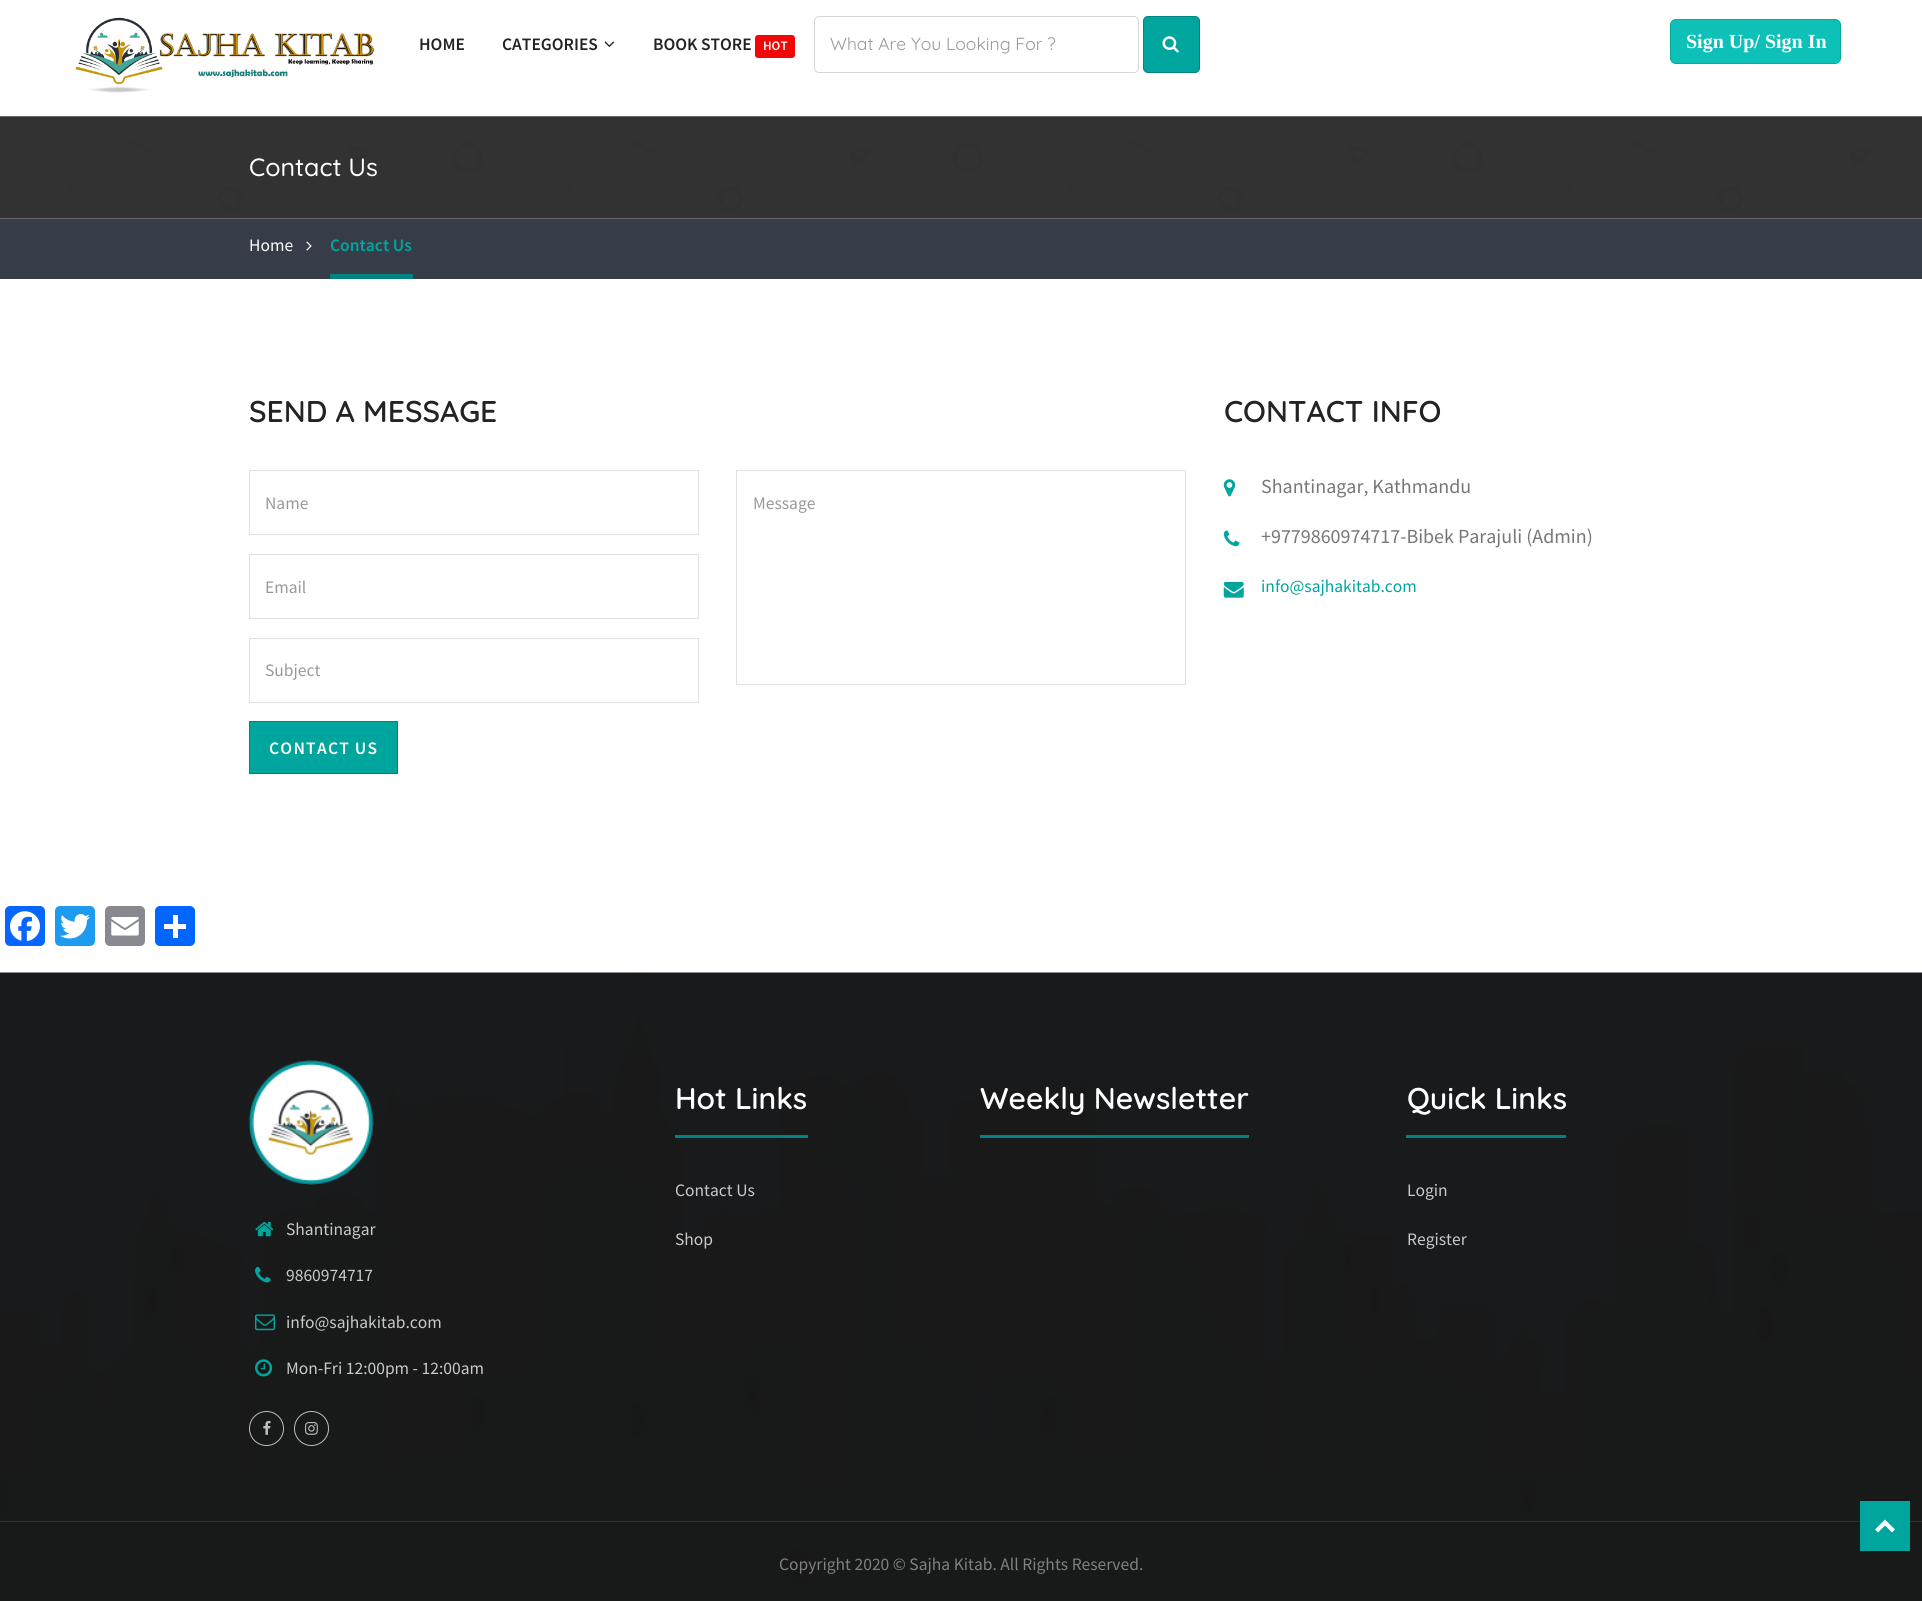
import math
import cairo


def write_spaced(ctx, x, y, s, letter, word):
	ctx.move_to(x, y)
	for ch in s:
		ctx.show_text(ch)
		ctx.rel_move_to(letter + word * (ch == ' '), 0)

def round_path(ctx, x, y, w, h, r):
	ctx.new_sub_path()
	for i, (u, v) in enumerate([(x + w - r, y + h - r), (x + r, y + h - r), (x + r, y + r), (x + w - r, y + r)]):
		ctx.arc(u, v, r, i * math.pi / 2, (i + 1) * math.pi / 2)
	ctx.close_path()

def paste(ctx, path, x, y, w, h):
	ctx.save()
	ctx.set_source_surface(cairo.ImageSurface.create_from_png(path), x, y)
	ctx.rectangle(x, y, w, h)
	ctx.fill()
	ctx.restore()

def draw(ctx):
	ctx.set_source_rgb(1, 1, 1)
	ctx.paint()
	paste(ctx, 'media/1.png', 75, 17, 299, 76)
	ctx.select_font_face('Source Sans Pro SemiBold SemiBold')
	ctx.set_font_size(17.5)
	ctx.set_source_rgb(0.137, 0.137, 0.137)
	ctx.move_to(419, 50)
	ctx.show_text('HOME')
	ctx.move_to(502, 50)
	ctx.show_text('CATEGORIES')
	paste(ctx, 'media/2.png', 604, 41, 11, 6)
	ctx.move_to(653, 50)
	ctx.show_text('BOOK STORE')
	ctx.set_source_rgb(0.949, 0.027, 0.027)
	round_path(ctx, 755, 35, 40, 23, 3)
	ctx.fill()
	ctx.set_font_size(13)
	ctx.set_source_rgb(1, 1, 1)
	ctx.move_to(763, 50)
	ctx.show_text('HOT')
	round_path(ctx, 814.5, 16.5, 324, 56, 4.5)
	ctx.set_source_rgb(0.839, 0.839, 0.839)
	ctx.set_line_width(1)
	ctx.stroke()
	ctx.select_font_face('Quicksand')
	ctx.set_font_size(17.5)
	ctx.set_source_rgb(0.6, 0.6, 0.6)
	ctx.move_to(830, 50)
	ctx.show_text('What Are You Looking For ?')
	ctx.set_source_rgb(0, 0.647, 0.616)
	round_path(ctx, 1143.5, 16.5, 56, 56, 4.5)
	ctx.fill_preserve()
	ctx.set_source_rgb(0.004, 0.51, 0.518)
	ctx.stroke()
	paste(ctx, 'media/3.png', 1162, 36, 17, 17)
	ctx.set_source_rgb(0.051, 0.753, 0.722)
	round_path(ctx, 1670.5, 19.5, 170, 44, 5.5)
	ctx.fill_preserve()
	ctx.set_source_rgb(0.027, 0.671, 0.584)
	ctx.stroke()
	ctx.select_font_face('Liberation Serif', cairo.FONT_SLANT_NORMAL, cairo.FONT_WEIGHT_BOLD)
	ctx.set_font_size(20)
	ctx.set_source_rgb(1, 1, 1)
	ctx.move_to(1686, 48)
	ctx.show_text('Sign Up/ Sign In')
	paste(ctx, 'media/4.png', 0, 116, 1922, 103)
	ctx.select_font_face('Quicksand Medium')
	ctx.set_font_size(25)
	ctx.move_to(249, 176)
	ctx.show_text('Contact Us')
	ctx.set_source_rgb(0.212, 0.235, 0.282)
	ctx.rectangle(0, 219, 1922, 60)
	ctx.fill()
	ctx.select_font_face('Source Sans Pro')
	ctx.set_font_size(17.5)
	ctx.set_source_rgb(1, 1, 1)
	ctx.move_to(249, 251)
	ctx.show_text('Home')
	paste(ctx, 'media/5.png', 306, 241, 6, 10)
	ctx.set_source_rgb(0.004, 0.51, 0.518)
	ctx.rectangle(330, 274, 83, 5)
	ctx.fill()
	ctx.select_font_face('Source Sans Pro SemiBold SemiBold')
	ctx.set_source_rgb(0, 0.647, 0.616)
	ctx.move_to(330, 251)
	ctx.show_text('Contact Us')
	ctx.select_font_face('Quicksand SemiBold')
	ctx.set_font_size(30)
	ctx.set_source_rgb(0.137, 0.137, 0.137)
	ctx.move_to(249, 422)
	ctx.show_text('SEND A MESSAGE')
	ctx.rectangle(249.5, 470.5, 449, 64)
	ctx.set_source_rgb(0.882, 0.882, 0.882)
	ctx.stroke()
	ctx.select_font_face('Source Sans Pro')
	ctx.set_font_size(17.5)
	ctx.set_source_rgb(0.6, 0.6, 0.6)
	ctx.move_to(265, 509)
	ctx.show_text('Name')
	ctx.rectangle(249.5, 554.5, 449, 64)
	ctx.set_source_rgb(0.882, 0.882, 0.882)
	ctx.stroke()
	ctx.set_source_rgb(0.6, 0.6, 0.6)
	ctx.move_to(265, 593)
	ctx.show_text('Email')
	ctx.rectangle(249.5, 638.5, 449, 64)
	ctx.set_source_rgb(0.882, 0.882, 0.882)
	ctx.stroke()
	ctx.set_source_rgb(0.6, 0.6, 0.6)
	ctx.move_to(265, 676)
	ctx.show_text('Subject')
	ctx.rectangle(736.5, 470.5, 449, 214)
	ctx.set_source_rgb(0.882, 0.882, 0.882)
	ctx.stroke()
	ctx.set_source_rgb(0.6, 0.6, 0.6)
	ctx.move_to(753, 509)
	ctx.show_text('Message')
	ctx.set_source_rgb(0, 0.647, 0.616)
	ctx.rectangle(249.5, 721.5, 148, 52)
	ctx.fill_preserve()
	ctx.set_source_rgb(0.004, 0.51, 0.518)
	ctx.stroke()
	ctx.select_font_face('Source Sans Pro SemiBold SemiBold')
	ctx.set_source_rgb(1, 1, 1)
	write_spaced(ctx, 269, 754, 'CONTACT US', 1.25, 0)
	ctx.select_font_face('Quicksand SemiBold')
	ctx.set_font_size(30)
	ctx.set_source_rgb(0.137, 0.137, 0.137)
	ctx.move_to(1224, 422)
	ctx.show_text('CONTACT INFO')
	paste(ctx, 'media/6.png', 1223, 479, 13, 18)
	ctx.select_font_face('Source Sans Pro')
	ctx.set_font_size(20)
	ctx.set_source_rgb(0.467, 0.467, 0.467)
	ctx.move_to(1261, 493)
	ctx.show_text('Shantinagar, Kathmandu')
	paste(ctx, 'media/7.png', 1223, 530, 17, 17)
	ctx.move_to(1261, 543)
	ctx.show_text('+9779860974717-Bibek Parajuli (Admin)')
	paste(ctx, 'media/8.png', 1223, 581, 21, 17)
	ctx.set_font_size(17.5)
	ctx.set_source_rgb(0, 0.647, 0.616)
	ctx.move_to(1261, 592)
	ctx.show_text('info@sajhakitab.com')
	ctx.set_source_rgb(0.031, 0.4, 1)
	round_path(ctx, 5, 906, 40, 40, 5)
	ctx.fill()
	paste(ctx, 'media/9.png', 10, 911, 30, 31)
	ctx.set_source_rgb(0.114, 0.608, 0.941)
	round_path(ctx, 55, 906, 40, 40, 5)
	ctx.fill()
	paste(ctx, 'media/10.png', 60, 914, 30, 25)
	ctx.set_source_rgb(0.533, 0.537, 0.565)
	round_path(ctx, 105, 906, 40, 40, 5)
	ctx.fill()
	paste(ctx, 'media/11.png', 111, 917, 28, 19)
	ctx.set_source_rgb(0.004, 0.4, 1)
	round_path(ctx, 155, 906, 40, 40, 5)
	ctx.fill()
	ctx.set_source_rgb(1, 1, 1)
	ctx.rectangle(173, 915, 5, 23)
	ctx.fill()
	ctx.rectangle(164, 924, 22, 5)
	ctx.fill()
	paste(ctx, 'media/12.png', 0, 972, 1922, 629)
	ctx.set_source_rgb(0.004, 0.51, 0.518)
	ctx.rectangle(675, 1135, 133, 3)
	ctx.fill()
	ctx.select_font_face('Quicksand SemiBold')
	ctx.set_font_size(30)
	ctx.set_source_rgb(1, 1, 1)
	ctx.move_to(675, 1109)
	ctx.show_text('Hot Links')
	ctx.select_font_face('Source Sans Pro')
	ctx.set_font_size(17.5)
	ctx.set_source_rgb(0.788, 0.788, 0.788)
	ctx.move_to(675, 1196)
	ctx.show_text('Contact Us')
	ctx.move_to(675, 1245)
	ctx.show_text('Shop')
	paste(ctx, 'media/13.png', 248, 1060, 126, 125)
	paste(ctx, 'media/14.png', 255, 1221, 19, 16)
	ctx.move_to(286, 1235)
	ctx.show_text('Shantinagar')
	paste(ctx, 'media/15.png', 255, 1266, 16, 17)
	ctx.move_to(286, 1281)
	ctx.show_text('9860974717')
	paste(ctx, 'media/16.png', 255, 1314, 20, 17)
	ctx.move_to(286, 1328)
	ctx.show_text('info@sajhakitab.com')
	paste(ctx, 'media/17.png', 255, 1359, 18, 18)
	ctx.move_to(286, 1374)
	ctx.show_text('Mon-Fri 12:00pm - 12:00am')
	ctx.new_path()
	ctx.arc(266.5, 1428.5, 17, 0, 2 * math.pi)
	ctx.set_source_rgb(0.737, 0.737, 0.737)
	ctx.stroke()
	paste(ctx, 'media/18.png', 263, 1420, 8, 15)
	ctx.arc(311.5, 1428.5, 17, 0, 2 * math.pi)
	ctx.stroke()
	paste(ctx, 'media/19.png', 305, 1422, 13, 13)
	ctx.set_source_rgb(0.004, 0.51, 0.518)
	ctx.rectangle(980, 1135, 269, 3)
	ctx.fill()
	ctx.select_font_face('Quicksand SemiBold')
	ctx.set_font_size(30)
	ctx.set_source_rgb(1, 1, 1)
	ctx.move_to(980, 1109)
	ctx.show_text('Weekly Newsletter')
	ctx.set_source_rgb(0.004, 0.51, 0.518)
	ctx.rectangle(1406, 1135, 160, 3)
	ctx.fill()
	ctx.set_source_rgb(1, 1, 1)
	ctx.move_to(1407, 1109)
	ctx.show_text('Quick Links')
	ctx.select_font_face('Source Sans Pro')
	ctx.set_font_size(17.5)
	ctx.set_source_rgb(0.788, 0.788, 0.788)
	ctx.move_to(1407, 1196)
	ctx.show_text('Login')
	ctx.move_to(1407, 1245)
	ctx.show_text('Register')
	ctx.set_source_rgb(0.184, 0.188, 0.188)
	ctx.rectangle(0, 1521, 1922, 1)
	ctx.fill()
	ctx.set_source_rgb(0.502, 0.502, 0.502)
	ctx.move_to(779, 1570)
	ctx.show_text('Copyright 2020 © Sajha Kitab. All Rights Reserved.')
	ctx.set_source_rgb(0, 0.647, 0.616)
	ctx.rectangle(1860, 1501, 50, 50)
	ctx.fill()
	ctx.set_source_rgb(1, 1, 1)
	ctx.new_path()
	ctx.move_to(1885, 1519.5)
	ctx.line_to(1895, 1529.5)
	ctx.line_to(1892, 1532.5)
	ctx.line_to(1885, 1525.5)
	ctx.line_to(1878, 1532.5)
	ctx.line_to(1875, 1529.5)
	ctx.close_path()
	ctx.fill()


surface = cairo.ImageSurface(cairo.FORMAT_RGB24, 1922, 1601)
ctx = cairo.Context(surface)
options = cairo.FontOptions()
options.set_hint_metrics(cairo.HINT_METRICS_OFF)
options.set_hint_style(cairo.HINT_STYLE_NONE)
ctx.set_font_options(options)
ctx.set_miter_limit(4)
draw(ctx)
surface.write_to_png('image.png')
